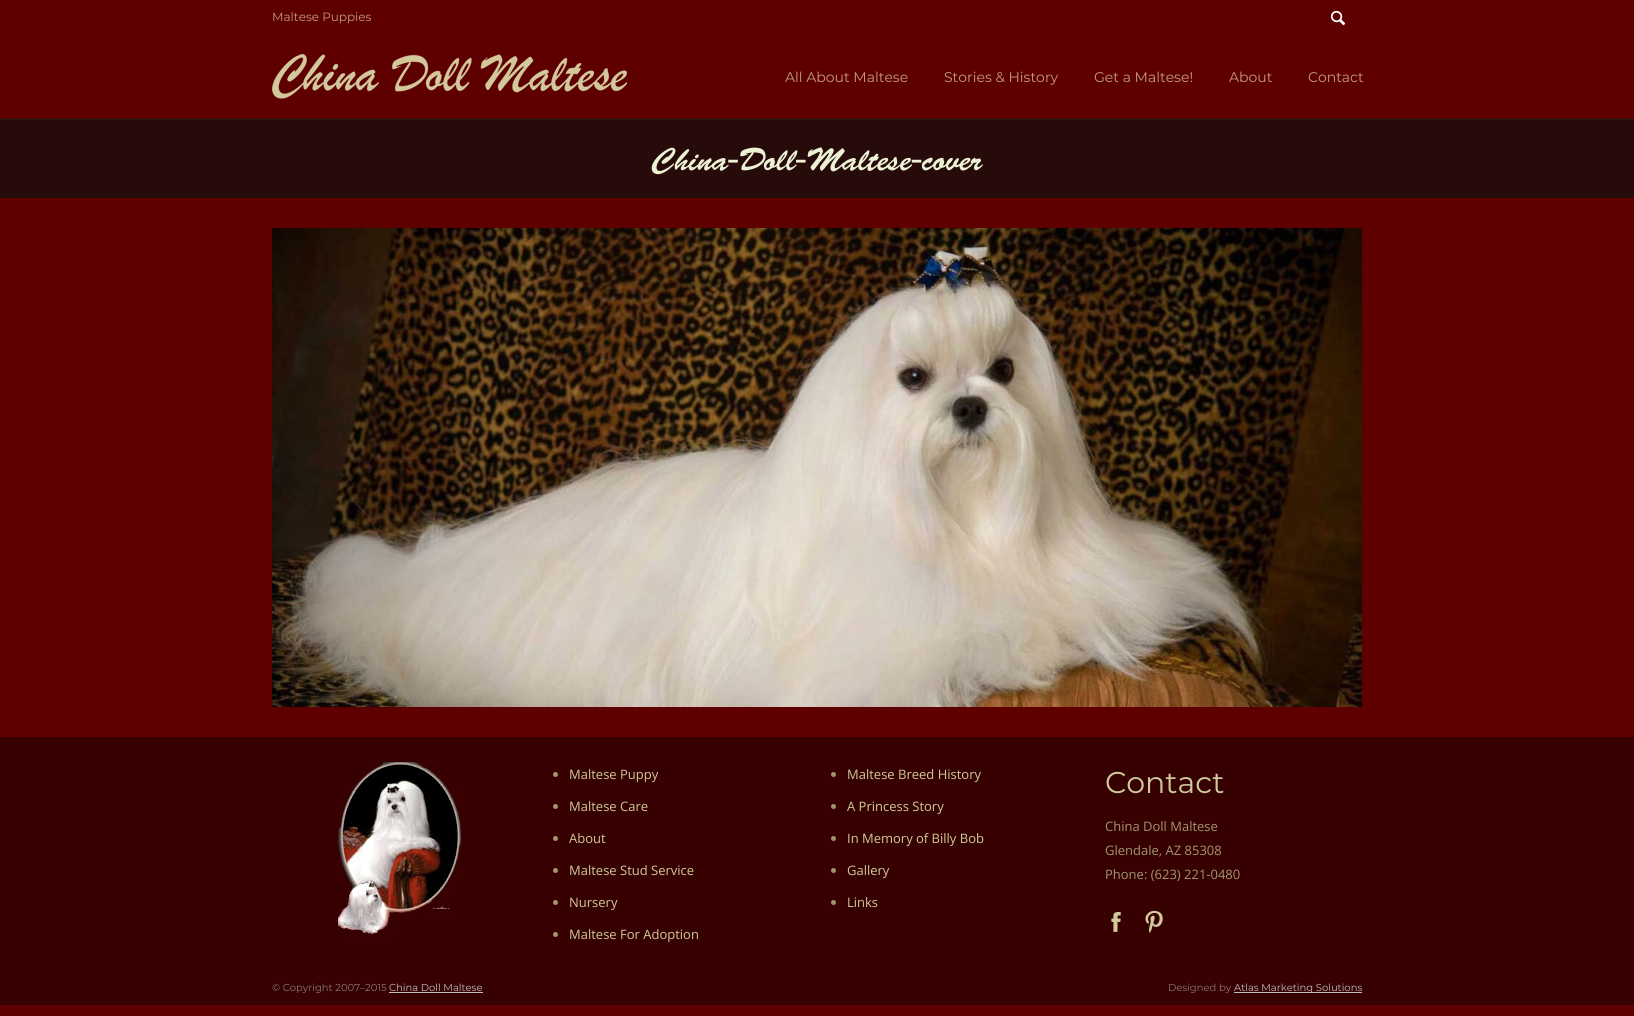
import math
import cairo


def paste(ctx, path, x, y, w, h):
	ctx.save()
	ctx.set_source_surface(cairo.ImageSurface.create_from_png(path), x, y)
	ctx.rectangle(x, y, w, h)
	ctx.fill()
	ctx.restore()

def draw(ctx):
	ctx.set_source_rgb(0.369, 0, 0)
	ctx.paint()
	ctx.select_font_face('Montserrat')
	ctx.set_font_size(12)
	ctx.set_source_rgb(0.761, 0.608, 0.525)
	ctx.move_to(272, 21)
	ctx.show_text('Maltese Puppies')
	paste(ctx, 'media/1.png', 1330, 10, 16, 16)
	paste(ctx, 'media/2.png', 272, 54, 355, 45)
	ctx.set_font_size(14)
	for x, y, s in [
		(785, 82, 'All About Maltese'),
		(944, 82, 'Stories & History'),
		(1094, 82, 'Get a Maltese!'),
		(1229, 82, 'About'),
		(1308, 82, 'Contact'),
	]:
		ctx.move_to(x, y)
		ctx.show_text(s)
	ctx.set_source_rgb(0.122, 0.122, 0.122)
	ctx.rectangle(0, 119, 1634, 1)
	ctx.fill()
	ctx.set_source_rgb(0.153, 0.043, 0.043)
	ctx.rectangle(0, 120, 1634, 78)
	ctx.fill()
	ctx.select_font_face('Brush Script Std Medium')
	ctx.set_font_size(32)
	ctx.set_source_rgb(0.929, 0.949, 0.835)
	ctx.move_to(652, 170)
	ctx.show_text('China-Doll-Maltese-cover')
	paste(ctx, 'media/3.png', 272, 228, 1090, 479)
	ctx.set_source_rgb(0.216, 0.004, 0.004)
	ctx.rectangle(0, 737, 1634, 268)
	ctx.fill()
	paste(ctx, 'media/4.png', 338, 762, 124, 175)
	ctx.set_source_rgb(0.639, 0.58, 0.443)
	ctx.arc(555.5, 774.5, 2.5, 0, 2 * math.pi)
	ctx.fill()
	ctx.select_font_face('Open Sans')
	ctx.set_font_size(13)
	ctx.set_source_rgb(0.808, 0.792, 0.608)
	ctx.move_to(569, 779)
	ctx.show_text('Maltese Puppy')
	ctx.set_source_rgb(0.639, 0.58, 0.443)
	ctx.new_path()
	ctx.arc(555.5, 806.5, 2.5, 0, 2 * math.pi)
	ctx.fill()
	ctx.set_source_rgb(0.808, 0.792, 0.608)
	ctx.move_to(569, 811)
	ctx.show_text('Maltese Care')
	ctx.set_source_rgb(0.639, 0.58, 0.443)
	ctx.new_path()
	ctx.arc(555.5, 838.5, 2.5, 0, 2 * math.pi)
	ctx.fill()
	ctx.set_source_rgb(0.808, 0.792, 0.608)
	ctx.move_to(569, 843)
	ctx.show_text('About')
	ctx.set_source_rgb(0.639, 0.58, 0.443)
	ctx.new_path()
	ctx.arc(555.5, 870.5, 2.5, 0, 2 * math.pi)
	ctx.fill()
	ctx.set_source_rgb(0.808, 0.792, 0.608)
	ctx.move_to(569, 875)
	ctx.show_text('Maltese Stud Service')
	ctx.set_source_rgb(0.639, 0.58, 0.443)
	ctx.new_path()
	ctx.arc(555.5, 902.5, 2.5, 0, 2 * math.pi)
	ctx.fill()
	ctx.set_source_rgb(0.808, 0.792, 0.608)
	ctx.move_to(569, 907)
	ctx.show_text('Nursery')
	ctx.set_source_rgb(0.639, 0.58, 0.443)
	ctx.new_path()
	ctx.arc(555.5, 934.5, 2.5, 0, 2 * math.pi)
	ctx.fill()
	ctx.set_source_rgb(0.808, 0.792, 0.608)
	ctx.move_to(569, 939)
	ctx.show_text('Maltese For Adoption')
	ctx.set_source_rgb(0.639, 0.58, 0.443)
	ctx.new_path()
	ctx.arc(833.5, 774.5, 2.5, 0, 2 * math.pi)
	ctx.fill()
	ctx.set_source_rgb(0.808, 0.792, 0.608)
	ctx.move_to(847, 779)
	ctx.show_text('Maltese Breed History')
	ctx.set_source_rgb(0.639, 0.58, 0.443)
	ctx.new_path()
	ctx.arc(833.5, 806.5, 2.5, 0, 2 * math.pi)
	ctx.fill()
	ctx.set_source_rgb(0.808, 0.792, 0.608)
	ctx.move_to(847, 811)
	ctx.show_text('A Princess Story')
	ctx.set_source_rgb(0.639, 0.58, 0.443)
	ctx.new_path()
	ctx.arc(833.5, 838.5, 2.5, 0, 2 * math.pi)
	ctx.fill()
	ctx.set_source_rgb(0.808, 0.792, 0.608)
	ctx.move_to(847, 843)
	ctx.show_text('In Memory of Billy Bob')
	ctx.set_source_rgb(0.639, 0.58, 0.443)
	ctx.new_path()
	ctx.arc(833.5, 870.5, 2.5, 0, 2 * math.pi)
	ctx.fill()
	ctx.set_source_rgb(0.808, 0.792, 0.608)
	ctx.move_to(847, 875)
	ctx.show_text('Gallery')
	ctx.set_source_rgb(0.639, 0.58, 0.443)
	ctx.new_path()
	ctx.arc(833.5, 902.5, 2.5, 0, 2 * math.pi)
	ctx.fill()
	ctx.set_source_rgb(0.808, 0.792, 0.608)
	ctx.move_to(847, 907)
	ctx.show_text('Links')
	ctx.select_font_face('Montserrat')
	ctx.set_font_size(30)
	ctx.move_to(1105, 793)
	ctx.show_text('Contact')
	ctx.select_font_face('Open Sans')
	ctx.set_font_size(13)
	ctx.set_source_rgb(0.639, 0.58, 0.443)
	for x, y, s in [
		(1105, 831, 'China Doll Maltese'),
		(1105, 855, 'Glendale, AZ 85308'),
		(1105, 879, 'Phone: (623) 221-0480'),
	]:
		ctx.move_to(x, y)
		ctx.show_text(s)
	paste(ctx, 'media/5.png', 1111, 912, 10, 20)
	paste(ctx, 'media/6.png', 1145, 910, 18, 23)
	ctx.select_font_face('Montserrat')
	ctx.set_font_size(10)
	ctx.set_source_rgb(0.545, 0.459, 0.439)
	ctx.move_to(272, 991)
	ctx.show_text('© Copyright 2007–2015')
	ctx.set_source_rgb(0.745, 0.745, 0.745)
	ctx.move_to(389, 991)
	ctx.show_text('China Doll Maltese')
	ctx.rectangle(389, 992, 94, 1)
	ctx.fill()
	ctx.set_source_rgb(0.545, 0.459, 0.439)
	ctx.move_to(1168, 991)
	ctx.show_text('Designed by')
	ctx.set_source_rgb(0.745, 0.745, 0.745)
	ctx.rectangle(1234, 992, 128, 1)
	ctx.fill()
	ctx.move_to(1234, 991)
	ctx.show_text('Atlas Marketing Solutions')


surface = cairo.ImageSurface(cairo.FORMAT_RGB24, 1634, 1016)
ctx = cairo.Context(surface)
options = cairo.FontOptions()
options.set_hint_metrics(cairo.HINT_METRICS_OFF)
options.set_hint_style(cairo.HINT_STYLE_NONE)
ctx.set_font_options(options)
ctx.set_miter_limit(4)
draw(ctx)
surface.write_to_png('image.png')
